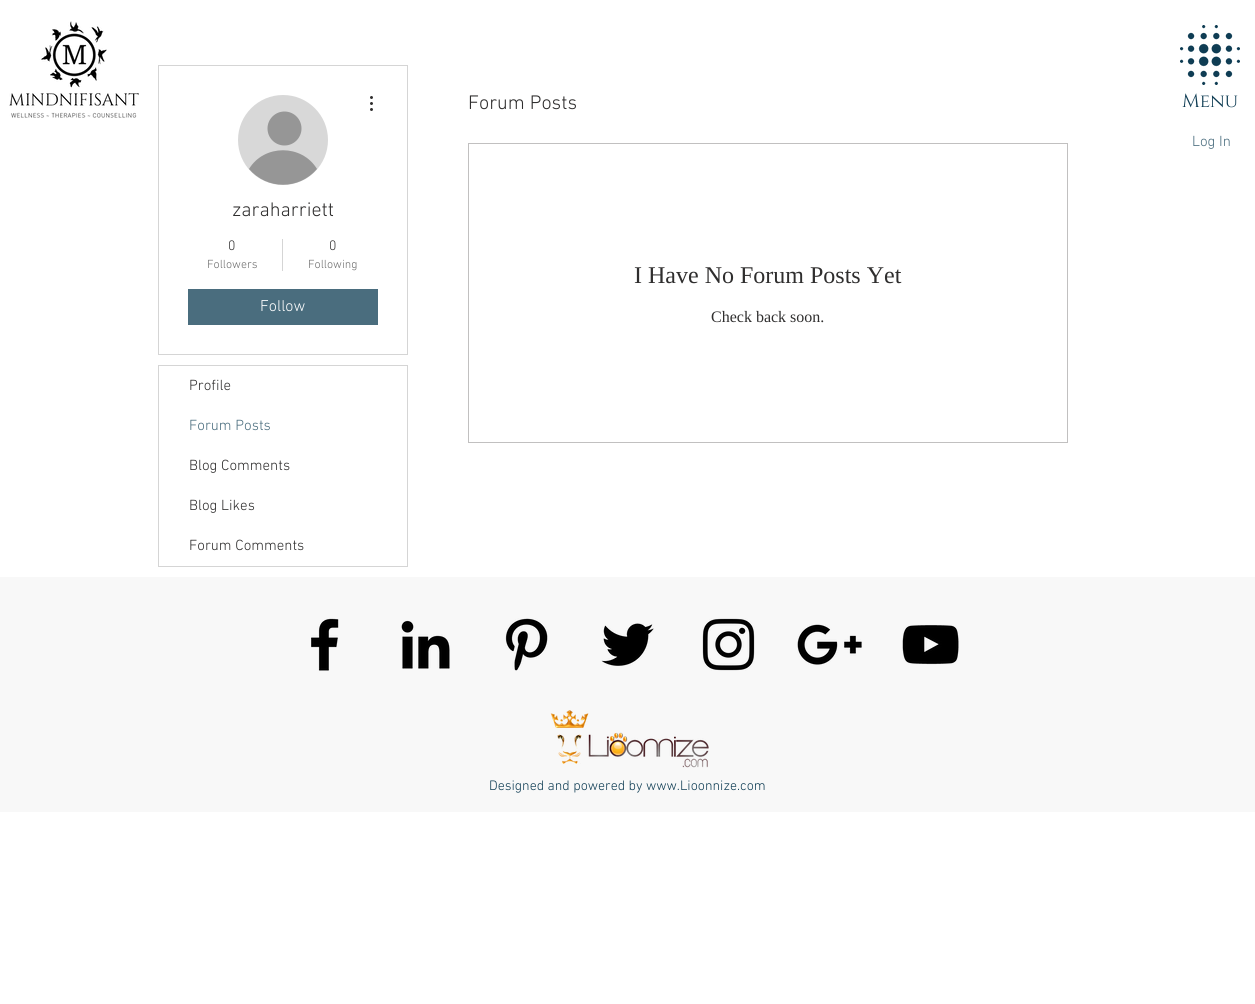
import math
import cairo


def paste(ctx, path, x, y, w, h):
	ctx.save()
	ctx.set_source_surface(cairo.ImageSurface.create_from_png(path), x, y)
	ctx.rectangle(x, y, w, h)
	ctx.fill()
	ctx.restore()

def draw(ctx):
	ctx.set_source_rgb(1, 1, 1)
	ctx.paint()
	paste(ctx, 'media/1.png', 9, 21, 130, 97)
	ctx.rectangle(158.5, 65.5, 249, 289)
	ctx.set_source_rgb(0.835, 0.835, 0.835)
	ctx.set_line_width(1)
	ctx.stroke()
	ctx.set_source_rgb(0.847, 0.847, 0.847)
	ctx.arc(283, 140, 45, 0, 2 * math.pi)
	ctx.fill()
	ctx.set_source_rgb(0.588, 0.588, 0.588)
	ctx.arc(284.5, 128.5, 17, 0, 2 * math.pi)
	ctx.fill()
	ctx.new_path()
	ctx.move_to(317, 169)
	ctx.curve_to(299, 190, 267, 190, 249, 169)
	ctx.curve_to(264, 144, 302, 144, 317, 169)
	ctx.close_path()
	ctx.fill()
	paste(ctx, 'media/2.png', 370, 96, 3, 15)
	ctx.select_font_face('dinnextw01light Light')
	ctx.set_font_size(20)
	ctx.set_source_rgb(0.184, 0.18, 0.18)
	ctx.move_to(232, 216)
	ctx.show_text('zaraharriett')
	ctx.set_font_size(14)
	ctx.move_to(228, 250)
	ctx.show_text('0')
	ctx.set_font_size(12)
	ctx.set_source_rgb(0.427, 0.427, 0.427)
	ctx.move_to(207, 268)
	ctx.show_text('Followers')
	ctx.set_source_rgb(0.835, 0.835, 0.835)
	ctx.rectangle(282, 239, 1, 32)
	ctx.fill()
	ctx.set_font_size(14)
	ctx.set_source_rgb(0.184, 0.18, 0.18)
	ctx.move_to(329, 250)
	ctx.show_text('0')
	ctx.set_font_size(12)
	ctx.set_source_rgb(0.427, 0.427, 0.427)
	ctx.move_to(308, 268)
	ctx.show_text('Following')
	ctx.set_source_rgb(0.29, 0.427, 0.494)
	ctx.rectangle(188, 289, 190, 36)
	ctx.fill()
	ctx.set_font_size(16)
	ctx.set_source_rgb(1, 1, 1)
	ctx.move_to(260, 311)
	ctx.show_text('Follow')
	ctx.rectangle(158.5, 365.5, 249, 201)
	ctx.set_source_rgb(0.835, 0.835, 0.835)
	ctx.stroke()
	ctx.set_font_size(15)
	ctx.set_source_rgb(0.184, 0.18, 0.18)
	ctx.move_to(189, 390)
	ctx.show_text('Profile')
	ctx.set_source_rgb(0.29, 0.427, 0.494)
	ctx.move_to(189, 430)
	ctx.show_text('Forum Posts')
	ctx.set_source_rgb(0.184, 0.18, 0.18)
	for x, y, s in [
		(189, 470, 'Blog Comments'),
		(189, 510, 'Blog Likes'),
		(189, 550, 'Forum Comments'),
	]:
		ctx.move_to(x, y)
		ctx.show_text(s)
	ctx.set_font_size(20)
	ctx.move_to(468, 109)
	ctx.show_text('Forum Posts')
	ctx.rectangle(468.5, 143.5, 599, 299)
	ctx.set_source_rgb(0.757, 0.753, 0.753)
	ctx.stroke()
	ctx.select_font_face('Liberation Serif')
	ctx.set_font_size(24)
	ctx.set_source_rgb(0.184, 0.18, 0.18)
	ctx.move_to(634, 283)
	ctx.show_text('I Have No Forum Posts Yet')
	ctx.set_font_size(16)
	ctx.move_to(711, 322)
	ctx.show_text('Check back soon.')
	paste(ctx, 'media/3.png', 1180, 25, 60, 60)
	ctx.select_font_face('Cinzel')
	ctx.set_font_size(19)
	ctx.set_source_rgb(0.055, 0.235, 0.325)
	ctx.move_to(1182, 107)
	ctx.show_text('Menu')
	ctx.select_font_face('dinnextw01light Light')
	ctx.set_font_size(15)
	ctx.set_source_rgb(0.29, 0.427, 0.494)
	ctx.move_to(1192, 146)
	ctx.show_text('Log In')
	ctx.set_source_rgb(0.969, 0.969, 0.969)
	ctx.rectangle(0, 577, 1255, 235)
	ctx.fill()
	paste(ctx, 'media/4.png', 311, 618, 28, 53)
	paste(ctx, 'media/5.png', 401, 620, 49, 49)
	paste(ctx, 'media/6.png', 505, 618, 43, 53)
	paste(ctx, 'media/7.png', 601, 623, 53, 43)
	paste(ctx, 'media/8.png', 702, 618, 53, 53)
	paste(ctx, 'media/9.png', 797, 624, 65, 41)
	paste(ctx, 'media/10.png', 902, 625, 57, 40)
	paste(ctx, 'media/11.png', 550, 710, 159, 58)
	ctx.set_font_size(14)
	ctx.set_source_rgb(0.055, 0.235, 0.325)
	ctx.move_to(489, 790)
	ctx.show_text('Designed and powered by www.Lioonnize.com')


surface = cairo.ImageSurface(cairo.FORMAT_RGB24, 1255, 1004)
ctx = cairo.Context(surface)
options = cairo.FontOptions()
options.set_hint_metrics(cairo.HINT_METRICS_OFF)
options.set_hint_style(cairo.HINT_STYLE_NONE)
ctx.set_font_options(options)
ctx.set_miter_limit(4)
draw(ctx)
surface.write_to_png('image.png')
